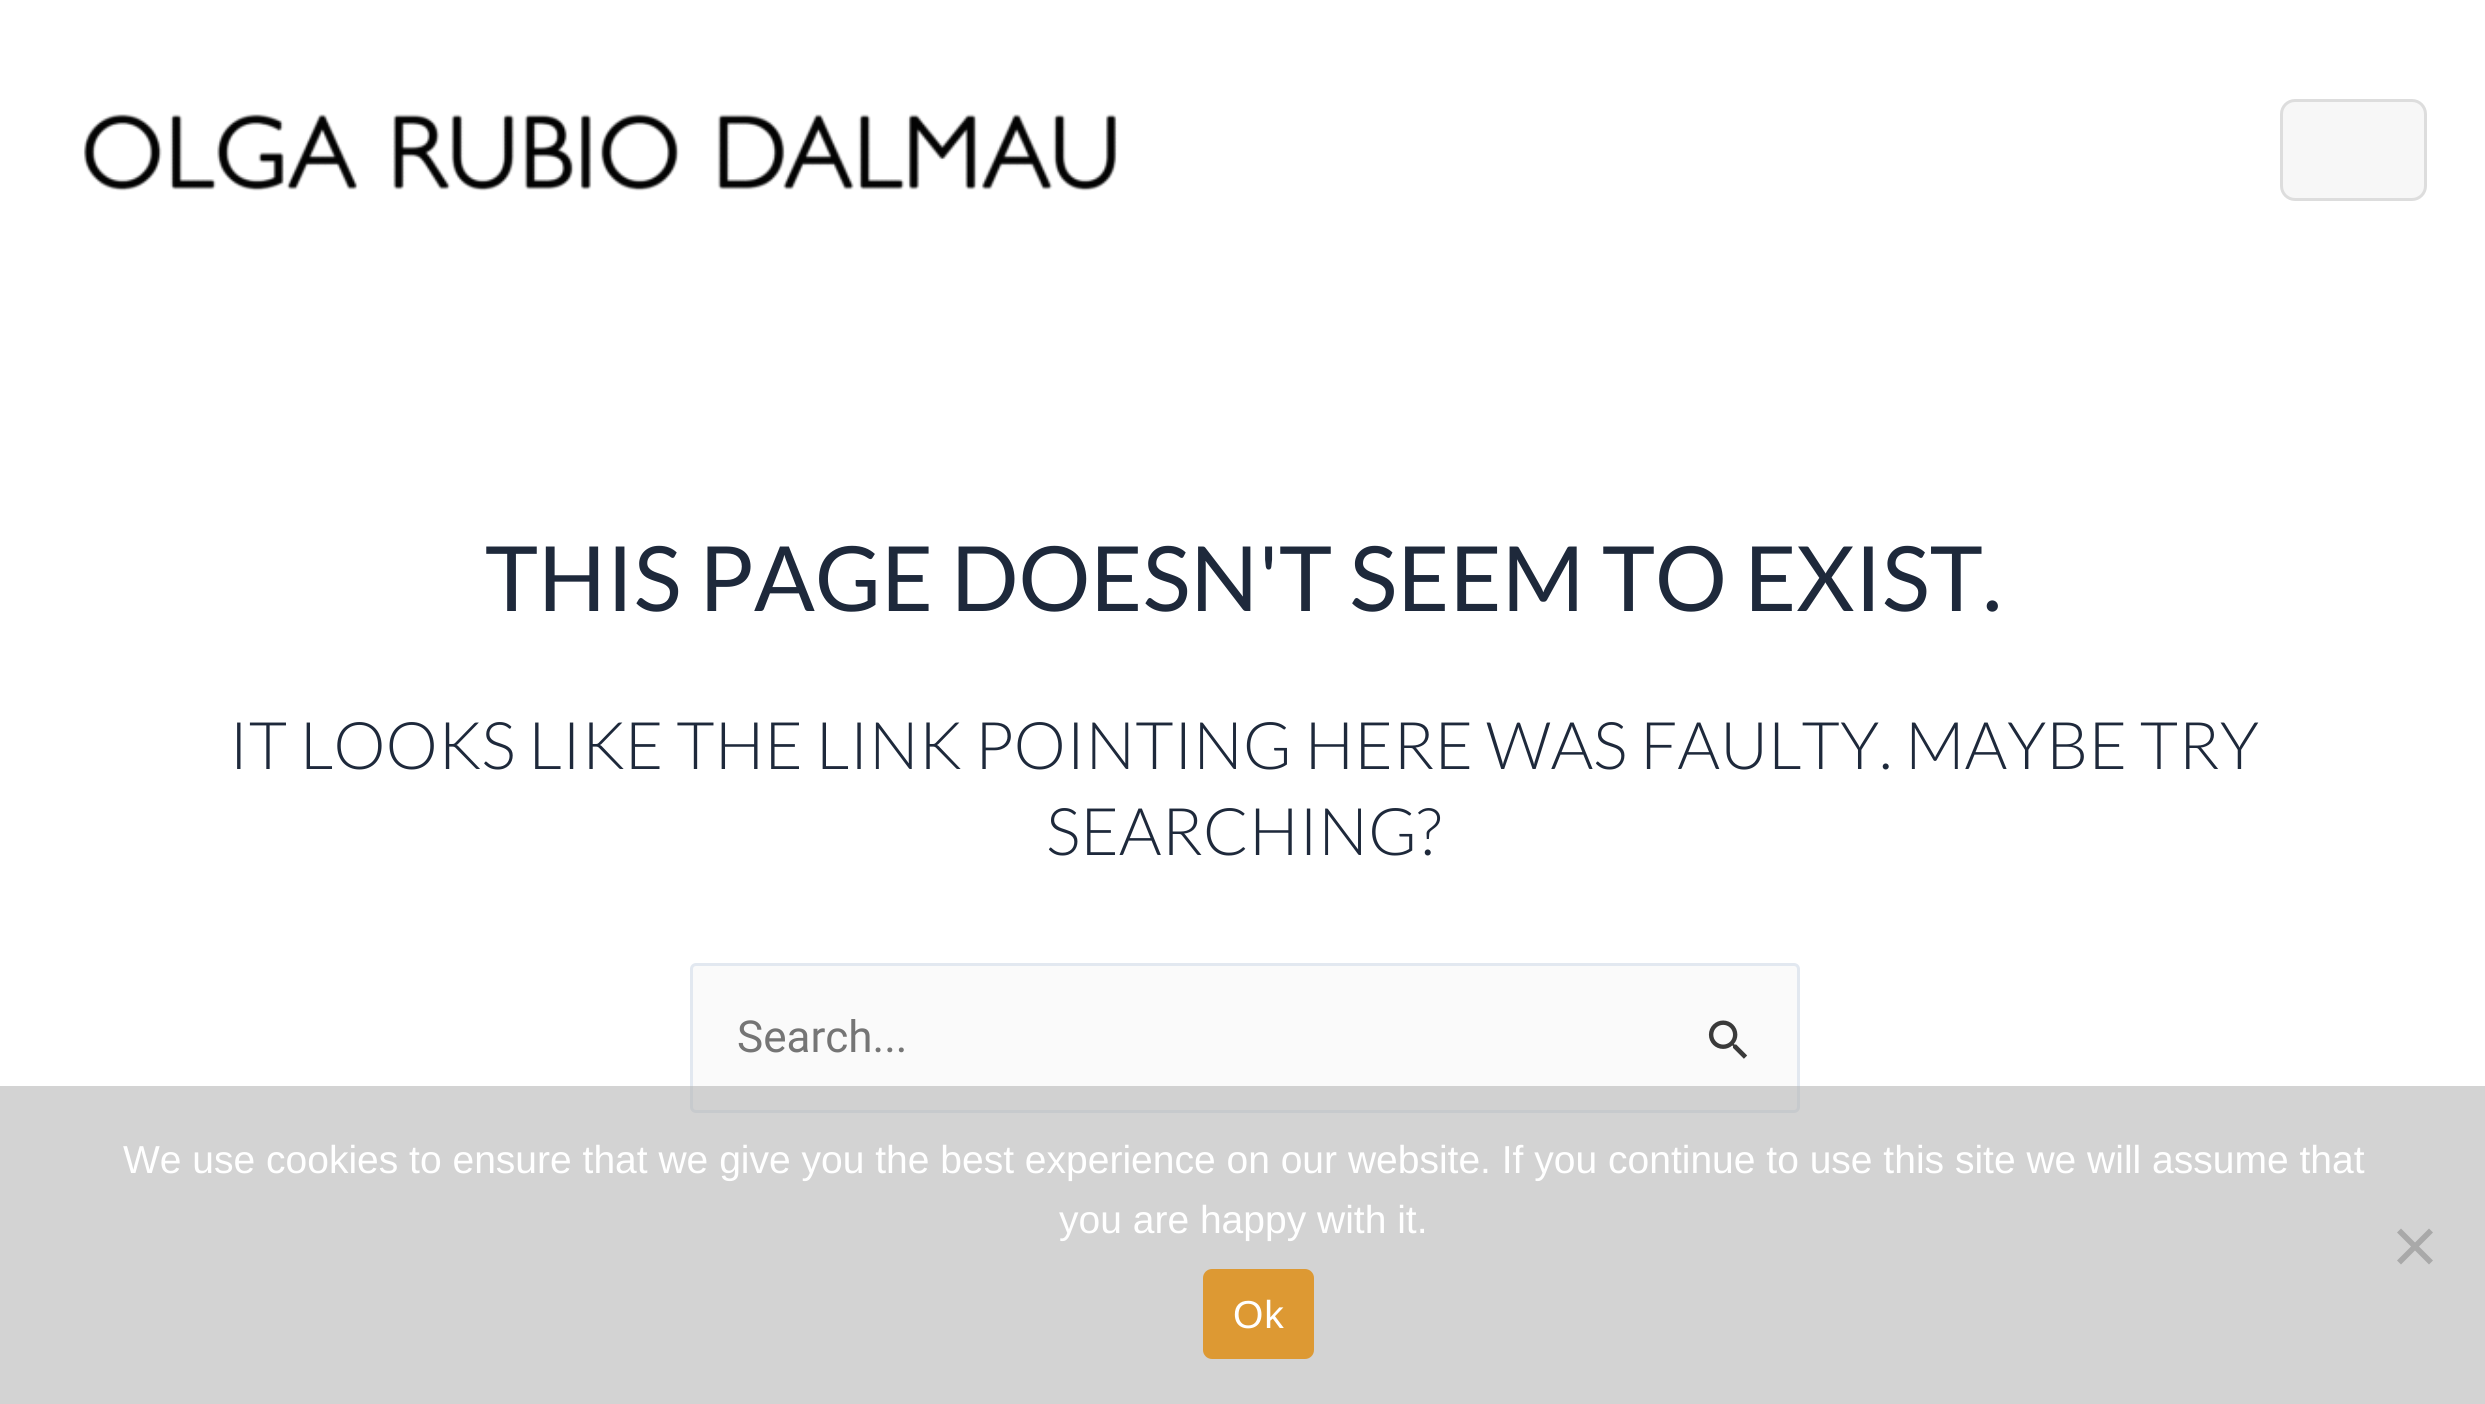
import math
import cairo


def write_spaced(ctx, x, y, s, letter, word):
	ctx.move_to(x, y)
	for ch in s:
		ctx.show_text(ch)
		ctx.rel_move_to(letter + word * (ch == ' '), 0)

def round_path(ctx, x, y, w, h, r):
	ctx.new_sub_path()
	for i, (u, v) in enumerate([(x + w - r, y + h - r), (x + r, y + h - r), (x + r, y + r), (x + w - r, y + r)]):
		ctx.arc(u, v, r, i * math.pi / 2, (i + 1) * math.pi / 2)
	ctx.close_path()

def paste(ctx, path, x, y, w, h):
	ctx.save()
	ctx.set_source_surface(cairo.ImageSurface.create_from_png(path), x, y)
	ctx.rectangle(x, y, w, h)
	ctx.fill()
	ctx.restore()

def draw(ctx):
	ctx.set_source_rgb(1, 1, 1)
	ctx.paint()
	paste(ctx, 'media/1.png', 83, 114, 1034, 77)
	ctx.set_source_rgb(0.965, 0.965, 0.965)
	round_path(ctx, 2281.5, 100.5, 144, 99, 13.5)
	ctx.fill_preserve()
	ctx.set_source_rgb(0.867, 0.867, 0.867)
	ctx.set_line_width(3)
	ctx.stroke()
	ctx.select_font_face('Lato')
	ctx.set_font_size(90)
	ctx.set_source_rgb(0.118, 0.161, 0.231)
	ctx.move_to(485, 611)
	ctx.show_text('THIS PAGE DOESN\'T SEEM TO EXIST.')
	ctx.select_font_face('Lato Light')
	ctx.set_font_size(65.65)
	ctx.move_to(229, 769)
	ctx.show_text('IT LOOKS LIKE THE LINK POINTING HERE WAS FAULTY. MAYBE TRY')
	ctx.move_to(1046, 855)
	ctx.show_text('SEARCHING?')
	ctx.set_source_rgb(0.98, 0.98, 0.98)
	round_path(ctx, 691.5, 964.5, 1107, 147, 4.5)
	ctx.fill_preserve()
	ctx.set_source_rgb(0.886, 0.91, 0.941)
	ctx.stroke()
	ctx.select_font_face('Roboto')
	ctx.set_font_size(44)
	ctx.set_source_rgb(0.459, 0.459, 0.459)
	ctx.move_to(737, 1052)
	ctx.show_text('Search...')
	paste(ctx, 'media/2.png', 1708, 1020, 40, 39)
	ctx.set_source_rgba(0.71, 0.71, 0.71, 0.6)
	ctx.rectangle(0, 1086, 2485, 318)
	ctx.fill()
	ctx.select_font_face('Liberation Sans')
	ctx.set_font_size(39)
	ctx.set_source_rgb(1, 1, 1)
	ctx.move_to(123, 1173)
	ctx.show_text('We use cookies to ensure that we give you the best experience on our website. If you continue to use this site we will assume that')
	ctx.move_to(1059, 1233)
	ctx.show_text('you are happy with it.')
	ctx.set_source_rgb(0.663, 0.663, 0.663)
	ctx.new_path()
	ctx.move_to(2429, 1228.5)
	ctx.line_to(2433, 1232.5)
	ctx.line_to(2401, 1264.5)
	ctx.line_to(2397, 1260.5)
	ctx.close_path()
	ctx.fill()
	ctx.new_path()
	ctx.move_to(2397, 1232.5)
	ctx.line_to(2401, 1228.5)
	ctx.line_to(2433, 1260.5)
	ctx.line_to(2429, 1264.5)
	ctx.close_path()
	ctx.fill()
	ctx.set_source_rgb(0.867, 0.6, 0.2)
	round_path(ctx, 1203, 1269, 111, 90, 9)
	ctx.fill()
	ctx.set_source_rgb(1, 1, 1)
	write_spaced(ctx, 1233, 1328, 'Ok', 1, 0)


surface = cairo.ImageSurface(cairo.FORMAT_RGB24, 2485, 1404)
ctx = cairo.Context(surface)
options = cairo.FontOptions()
options.set_hint_metrics(cairo.HINT_METRICS_OFF)
options.set_hint_style(cairo.HINT_STYLE_NONE)
ctx.set_font_options(options)
ctx.set_miter_limit(4)
draw(ctx)
surface.write_to_png('image.png')
